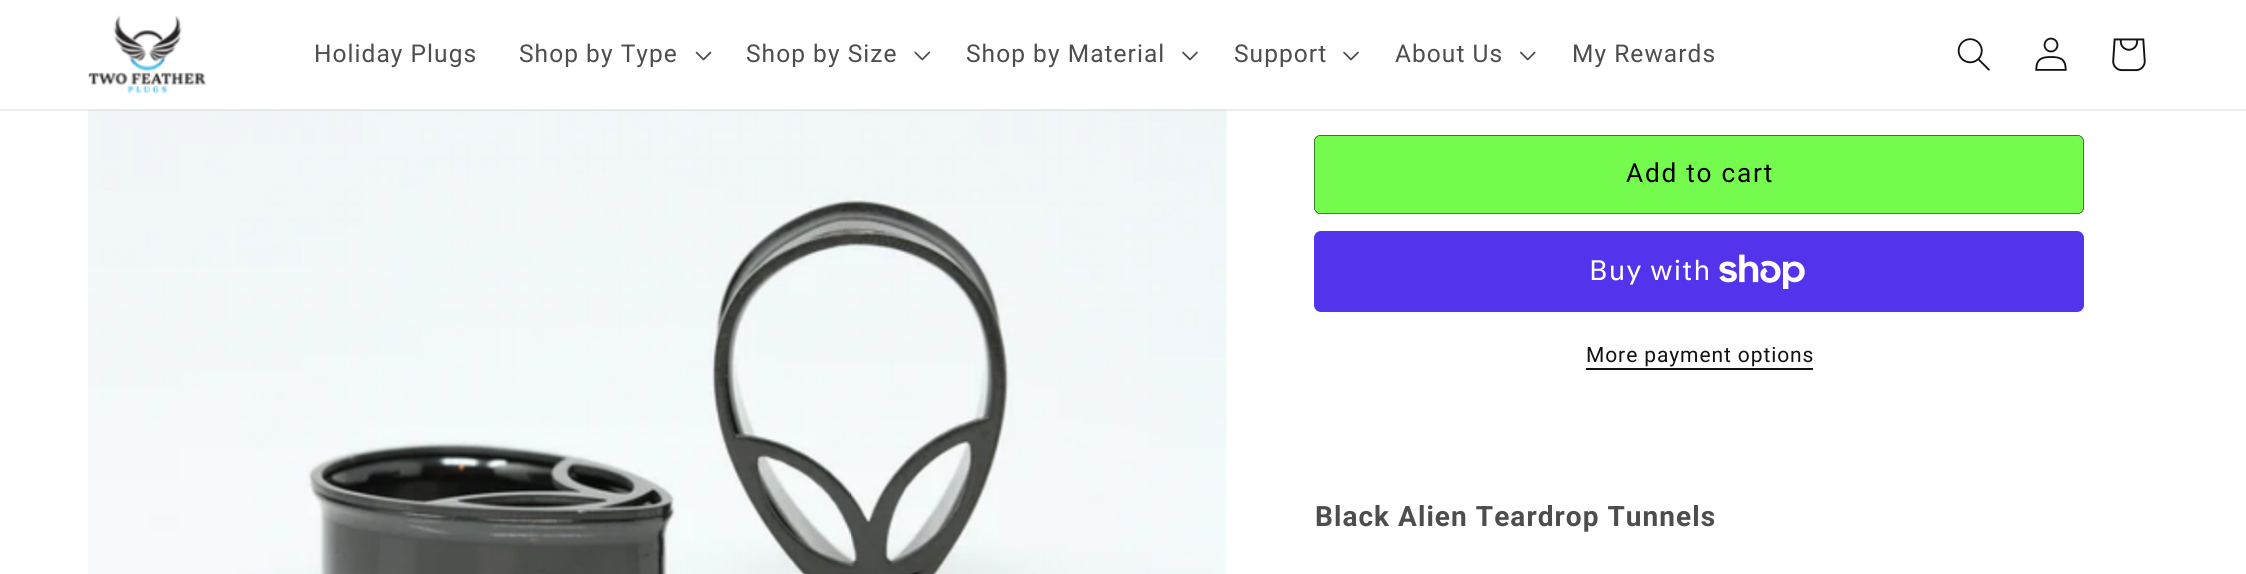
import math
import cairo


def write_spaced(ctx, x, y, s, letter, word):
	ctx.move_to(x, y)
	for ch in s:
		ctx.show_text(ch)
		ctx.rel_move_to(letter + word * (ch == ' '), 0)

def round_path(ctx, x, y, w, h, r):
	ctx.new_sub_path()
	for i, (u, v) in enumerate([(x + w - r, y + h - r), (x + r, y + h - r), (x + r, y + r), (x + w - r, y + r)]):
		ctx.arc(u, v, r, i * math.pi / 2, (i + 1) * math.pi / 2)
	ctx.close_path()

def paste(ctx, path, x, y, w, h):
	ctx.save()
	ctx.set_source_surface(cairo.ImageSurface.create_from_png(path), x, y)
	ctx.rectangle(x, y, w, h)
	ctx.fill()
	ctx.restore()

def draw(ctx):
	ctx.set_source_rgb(1, 1, 1)
	ctx.paint()
	paste(ctx, 'media/9.png', 88, 110, 1139, 464)
	ctx.set_source_rgba(0.071, 0.071, 0.071, 0.08)
	ctx.rectangle(0, 109, 2246, 2)
	ctx.fill()
	paste(ctx, 'media/1.png', 88, 15, 118, 79)
	ctx.select_font_face('Roboto')
	ctx.set_font_size(24.5)
	ctx.set_source_rgb(0.302, 0.302, 0.302)
	write_spaced(ctx, 314, 62, 'Holiday Plugs', 1.05, 0)
	write_spaced(ctx, 519, 62, 'Shop by Type', 1.05, 0)
	paste(ctx, 'media/2.png', 695, 51, 17, 10)
	write_spaced(ctx, 746, 62, 'Shop by Size', 1.05, 0)
	paste(ctx, 'media/3.png', 914, 51, 17, 10)
	write_spaced(ctx, 966, 62, 'Shop by Material', 1.05, 0)
	paste(ctx, 'media/4.png', 1182, 51, 16, 10)
	write_spaced(ctx, 1234, 62, 'Support', 1.05, 0)
	paste(ctx, 'media/4.png', 1343, 51, 16, 10)
	write_spaced(ctx, 1395, 62, 'About Us', 1.05, 0)
	paste(ctx, 'media/5.png', 1519, 51, 17, 10)
	write_spaced(ctx, 1572, 62, 'My Rewards', 1.05, 0)
	paste(ctx, 'media/6.png', 1957, 38, 33, 33)
	paste(ctx, 'media/7.png', 2035, 37, 32, 34)
	paste(ctx, 'media/8.png', 2112, 38, 34, 34)
	ctx.set_source_rgb(0.459, 0.984, 0.302)
	round_path(ctx, 1314, 135, 770, 79, 7)
	ctx.fill()
	round_path(ctx, 1314.25, 135.25, 769.5, 78.5, 6.75)
	ctx.set_source_rgb(0, 0, 0)
	ctx.set_line_width(0.5)
	ctx.stroke()
	ctx.set_font_size(26.25)
	write_spaced(ctx, 1626, 182, 'Add to cart', 1.75, 0)
	ctx.set_source_rgb(0.329, 0.2, 0.922)
	round_path(ctx, 1314, 231, 770, 81, 7)
	ctx.fill()
	ctx.select_font_face('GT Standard')
	ctx.set_font_size(28)
	ctx.set_source_rgb(1, 1, 1)
	write_spaced(ctx, 1589, 280, 'Buy with', 1.05, 0)
	paste(ctx, 'media/10.png', 1719, 254, 86, 35)
	ctx.select_font_face('Roboto')
	ctx.set_font_size(21)
	ctx.set_source_rgb(0.071, 0.071, 0.071)
	write_spaced(ctx, 1586, 362, 'More payment options', 0.9, 0)
	ctx.rectangle(1586, 368, 227, 2)
	ctx.fill()
	ctx.select_font_face('Roboto', cairo.FONT_SLANT_NORMAL, cairo.FONT_WEIGHT_BOLD)
	ctx.set_font_size(28)
	ctx.set_source_rgb(0.302, 0.302, 0.302)
	write_spaced(ctx, 1315, 526, 'Black Alien Teardrop Tunnels', 1.05, 0)


surface = cairo.ImageSurface(cairo.FORMAT_RGB24, 2246, 574)
ctx = cairo.Context(surface)
options = cairo.FontOptions()
options.set_hint_metrics(cairo.HINT_METRICS_OFF)
options.set_hint_style(cairo.HINT_STYLE_NONE)
ctx.set_font_options(options)
ctx.set_miter_limit(4)
draw(ctx)
surface.write_to_png('image.png')
